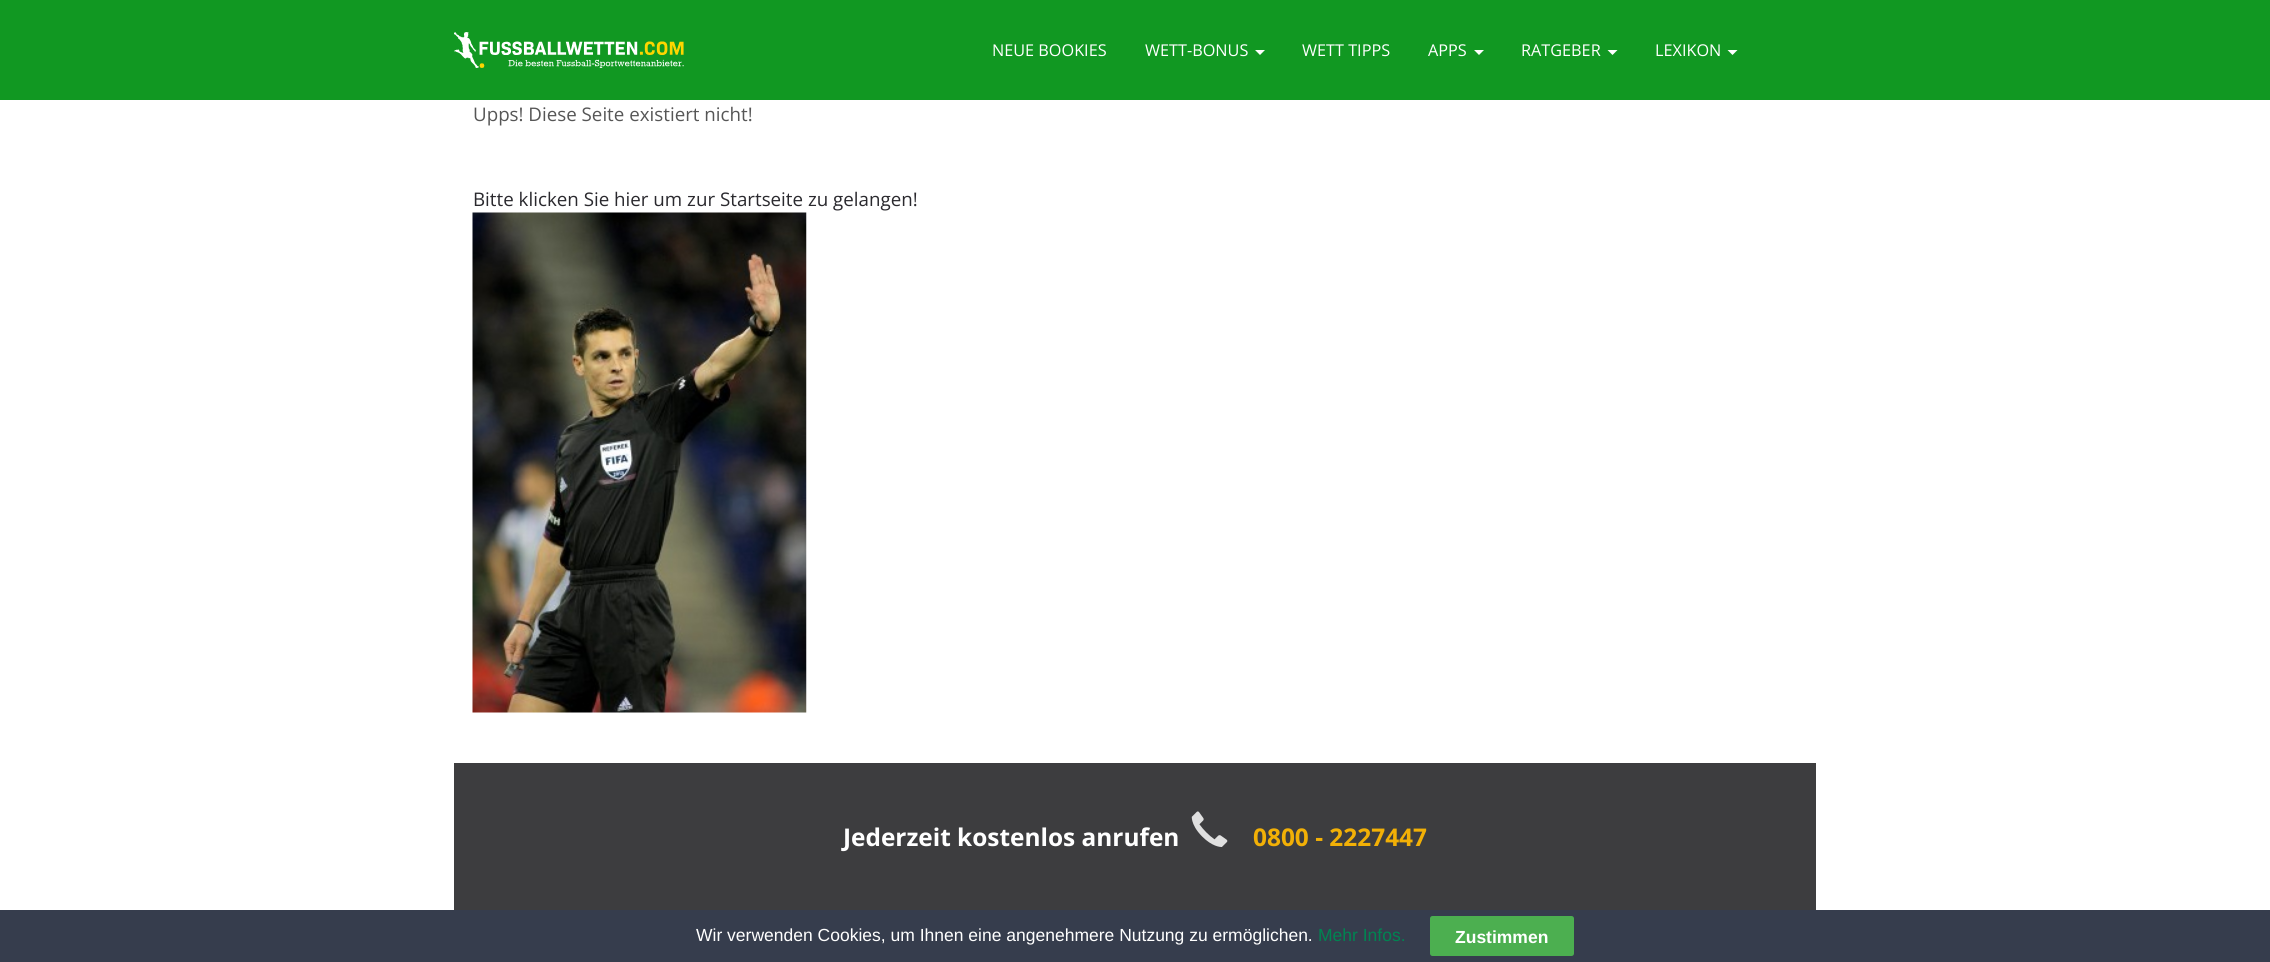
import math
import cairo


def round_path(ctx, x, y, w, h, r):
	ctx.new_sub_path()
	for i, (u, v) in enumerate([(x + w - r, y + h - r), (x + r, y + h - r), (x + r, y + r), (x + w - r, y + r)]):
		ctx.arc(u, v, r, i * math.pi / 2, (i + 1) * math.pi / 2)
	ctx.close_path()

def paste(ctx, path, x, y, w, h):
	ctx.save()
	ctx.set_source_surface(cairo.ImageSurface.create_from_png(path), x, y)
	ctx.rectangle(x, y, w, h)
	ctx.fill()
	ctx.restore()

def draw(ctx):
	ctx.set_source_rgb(1, 1, 1)
	ctx.paint()
	ctx.set_source_rgb(0.067, 0.596, 0.133)
	ctx.rectangle(0, 0, 2270, 100)
	ctx.fill()
	paste(ctx, 'media/1.png', 454, 32, 230, 36)
	ctx.select_font_face('Open Sans')
	ctx.set_font_size(16.25)
	ctx.set_source_rgb(1, 1, 1)
	ctx.move_to(992, 56)
	ctx.show_text('NEUE BOOKIES')
	ctx.move_to(1145, 56)
	ctx.show_text('WETT-BONUS')
	ctx.new_path()
	ctx.move_to(1255, 50)
	ctx.line_to(1265, 50)
	ctx.line_to(1260, 55)
	ctx.close_path()
	ctx.fill()
	ctx.move_to(1302, 56)
	ctx.show_text('WETT TIPPS')
	ctx.move_to(1428, 56)
	ctx.show_text('APPS')
	ctx.new_path()
	ctx.move_to(1474, 50)
	ctx.line_to(1484, 50)
	ctx.line_to(1479, 55)
	ctx.close_path()
	ctx.fill()
	ctx.move_to(1521, 56)
	ctx.show_text('RATGEBER')
	ctx.new_path()
	ctx.move_to(1607.5, 50)
	ctx.line_to(1617.5, 50)
	ctx.line_to(1612.5, 55)
	ctx.close_path()
	ctx.fill()
	ctx.move_to(1655, 56)
	ctx.show_text('LEXIKON')
	ctx.new_path()
	ctx.move_to(1727.5, 50)
	ctx.line_to(1737.5, 50)
	ctx.line_to(1732.5, 55)
	ctx.close_path()
	ctx.fill()
	ctx.set_font_size(18.75)
	ctx.set_source_rgb(0.337, 0.337, 0.337)
	ctx.move_to(473, 121)
	ctx.show_text('Upps! Diese Seite existiert nicht!')
	ctx.set_source_rgb(0.165, 0.161, 0.18)
	ctx.move_to(473, 206)
	ctx.show_text('Bitte klicken Sie hier um zur Startseite zu gelangen!')
	paste(ctx, 'media/2.png', 472, 212, 335, 501)
	ctx.set_source_rgb(0.239, 0.239, 0.247)
	ctx.rectangle(454, 763, 1362, 147)
	ctx.fill()
	ctx.select_font_face('Open Sans', cairo.FONT_SLANT_NORMAL, cairo.FONT_WEIGHT_BOLD)
	ctx.set_font_size(24.4)
	ctx.set_source_rgb(1, 1, 1)
	ctx.move_to(843, 846)
	ctx.show_text('Jederzeit kostenlos anrufen')
	paste(ctx, 'media/3.png', 1191, 811, 37, 36)
	ctx.set_source_rgb(0.949, 0.69, 0.024)
	ctx.move_to(1253, 846)
	ctx.show_text('0800 - 2227447')
	ctx.set_source_rgb(0.212, 0.239, 0.302)
	ctx.rectangle(0, 910, 2270, 52)
	ctx.fill()
	ctx.select_font_face('Liberation Sans')
	ctx.set_font_size(17.5)
	ctx.set_source_rgb(1, 1, 1)
	ctx.move_to(696, 941)
	ctx.show_text('Wir verwenden Cookies, um Ihnen eine angenehmere Nutzung zu ermöglichen.')
	ctx.set_source_rgb(0, 0.518, 0.318)
	ctx.move_to(1318, 941)
	ctx.show_text('Mehr Infos.')
	ctx.set_source_rgb(0.298, 0.686, 0.314)
	round_path(ctx, 1430, 916, 144, 40, 2.5)
	ctx.fill()
	ctx.select_font_face('Liberation Sans', cairo.FONT_SLANT_NORMAL, cairo.FONT_WEIGHT_BOLD)
	ctx.set_source_rgb(1, 1, 1)
	ctx.move_to(1455, 943)
	ctx.show_text('Zustimmen')


surface = cairo.ImageSurface(cairo.FORMAT_RGB24, 2270, 962)
ctx = cairo.Context(surface)
options = cairo.FontOptions()
options.set_hint_metrics(cairo.HINT_METRICS_OFF)
options.set_hint_style(cairo.HINT_STYLE_NONE)
ctx.set_font_options(options)
ctx.set_miter_limit(4)
draw(ctx)
surface.write_to_png('image.png')
